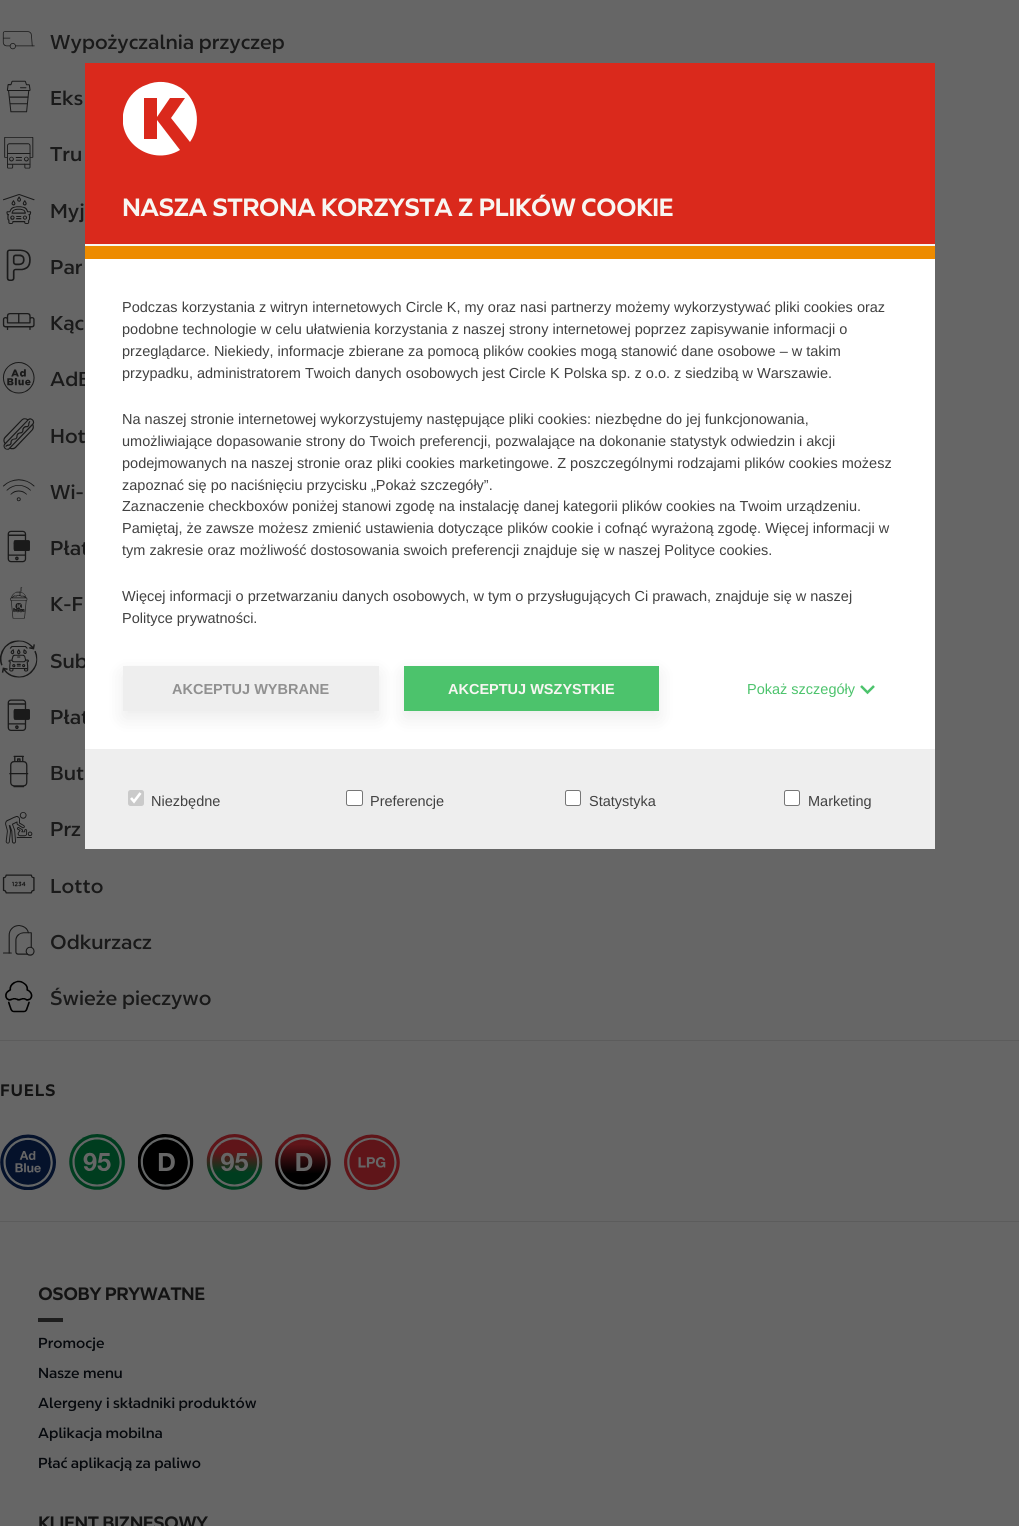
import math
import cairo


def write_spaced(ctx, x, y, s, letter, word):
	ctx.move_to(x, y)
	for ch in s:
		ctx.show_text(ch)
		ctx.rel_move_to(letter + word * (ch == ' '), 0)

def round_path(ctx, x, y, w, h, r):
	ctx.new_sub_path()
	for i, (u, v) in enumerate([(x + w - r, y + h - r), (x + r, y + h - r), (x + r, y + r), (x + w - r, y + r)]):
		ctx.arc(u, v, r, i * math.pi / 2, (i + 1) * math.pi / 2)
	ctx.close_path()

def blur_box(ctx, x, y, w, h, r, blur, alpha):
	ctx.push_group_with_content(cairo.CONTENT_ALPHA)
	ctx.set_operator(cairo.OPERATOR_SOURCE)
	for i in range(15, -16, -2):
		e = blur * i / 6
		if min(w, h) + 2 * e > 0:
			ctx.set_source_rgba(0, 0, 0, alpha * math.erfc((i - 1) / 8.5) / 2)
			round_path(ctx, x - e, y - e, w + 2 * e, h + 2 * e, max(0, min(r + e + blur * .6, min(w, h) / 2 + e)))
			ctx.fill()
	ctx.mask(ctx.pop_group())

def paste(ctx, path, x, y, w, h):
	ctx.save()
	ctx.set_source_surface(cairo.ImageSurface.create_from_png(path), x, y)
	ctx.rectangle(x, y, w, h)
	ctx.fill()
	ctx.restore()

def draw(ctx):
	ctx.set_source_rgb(0.4, 0.4, 0.4)
	ctx.paint()
	paste(ctx, 'media/1.png', 2, 31, 33, 19)
	ctx.select_font_face('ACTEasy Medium')
	ctx.set_font_size(20)
	ctx.set_source_rgb(0.102, 0.102, 0.102)
	ctx.move_to(50, 49)
	ctx.show_text('Wypożyczalnia przyczep')
	paste(ctx, 'media/2.png', 6, 80, 25, 33)
	ctx.move_to(50, 105)
	ctx.show_text('Eks')
	paste(ctx, 'media/3.png', 4, 137, 30, 32)
	ctx.move_to(50, 161)
	ctx.show_text('Tru')
	paste(ctx, 'media/4.png', 3, 194, 32, 30)
	ctx.move_to(50, 218)
	ctx.show_text('Myj')
	paste(ctx, 'media/5.png', 6, 249, 25, 32)
	ctx.move_to(50, 274)
	ctx.show_text('Par')
	paste(ctx, 'media/6.png', 2, 313, 33, 17)
	ctx.move_to(50, 330)
	ctx.show_text('Kąc')
	paste(ctx, 'media/7.png', 2, 362, 33, 32)
	ctx.move_to(50, 386)
	ctx.show_text('AdB')
	paste(ctx, 'media/8.png', 3, 418, 32, 32)
	ctx.move_to(50, 443)
	ctx.show_text('Hot')
	paste(ctx, 'media/9.png', 3, 479, 32, 23)
	ctx.move_to(50, 499)
	ctx.show_text('Wi-')
	paste(ctx, 'media/10.png', 7, 530, 23, 33)
	ctx.move_to(50, 555)
	ctx.show_text('Płat')
	paste(ctx, 'media/11.png', 10, 587, 18, 32)
	ctx.move_to(50, 611)
	ctx.show_text('K-F')
	paste(ctx, 'media/12.png', 0, 640, 38, 38)
	ctx.move_to(50, 668)
	ctx.show_text('Sub')
	paste(ctx, 'media/13.png', 7, 699, 23, 32)
	ctx.move_to(50, 724)
	ctx.show_text('Płat')
	paste(ctx, 'media/14.png', 9, 755, 20, 33)
	ctx.move_to(50, 780)
	ctx.show_text('But')
	paste(ctx, 'media/15.png', 5, 812, 28, 32)
	ctx.move_to(50, 836)
	ctx.show_text('Prz')
	paste(ctx, 'media/16.png', 2, 874, 33, 20)
	ctx.move_to(50, 893)
	ctx.show_text('Lotto')
	paste(ctx, 'media/17.png', 3, 925, 32, 31)
	ctx.move_to(50, 949)
	ctx.show_text('Odkurzacz')
	paste(ctx, 'media/18.png', 5, 980, 28, 33)
	ctx.move_to(50, 1005)
	ctx.show_text('Świeże pieczywo')
	ctx.set_source_rgb(0.361, 0.361, 0.361)
	ctx.rectangle(0, 1040, 1019, 1)
	ctx.fill()
	ctx.select_font_face('ACTEasy', cairo.FONT_SLANT_NORMAL, cairo.FONT_WEIGHT_BOLD)
	ctx.set_font_size(16)
	ctx.set_source_rgb(0.078, 0.078, 0.078)
	write_spaced(ctx, 0, 1096, 'FUELS', 1.25, 0)
	paste(ctx, 'media/19.png', 0, 1134, 56, 56)
	paste(ctx, 'media/20.png', 69, 1134, 56, 56)
	paste(ctx, 'media/21.png', 138, 1134, 56, 56)
	paste(ctx, 'media/22.png', 206, 1134, 57, 56)
	paste(ctx, 'media/23.png', 275, 1134, 56, 56)
	paste(ctx, 'media/24.png', 344, 1134, 56, 56)
	ctx.set_source_rgb(0.361, 0.361, 0.361)
	ctx.rectangle(0, 1221, 1019, 1)
	ctx.fill()
	ctx.set_font_size(17.25)
	ctx.set_source_rgb(0.078, 0.078, 0.078)
	ctx.move_to(38, 1300)
	ctx.show_text('OSOBY PRYWATNE')
	ctx.set_source_rgb(0.114, 0.114, 0.114)
	ctx.rectangle(38, 1318, 25, 4)
	ctx.fill()
	ctx.select_font_face('ACTEasy Medium')
	ctx.set_font_size(14.5)
	ctx.set_source_rgb(0.024, 0.039, 0.051)
	for x, y, s in [
		(38, 1348, 'Promocje'),
		(38, 1378, 'Nasze menu'),
		(38, 1408, 'Alergeny i składniki produktów'),
		(38, 1438, 'Aplikacja mobilna'),
		(38, 1468, 'Płać aplikacją za paliwo'),
	]:
		ctx.move_to(x, y)
		ctx.show_text(s)
	ctx.select_font_face('ACTEasy', cairo.FONT_SLANT_NORMAL, cairo.FONT_WEIGHT_BOLD)
	ctx.set_font_size(17.25)
	ctx.set_source_rgb(0.078, 0.078, 0.078)
	ctx.move_to(38, 1529)
	ctx.show_text('KLIENT BIZNESOWY')
	ctx.set_source_rgb(1, 1, 1)
	ctx.rectangle(85, 259, 850, 490)
	ctx.fill()
	ctx.set_source_rgb(0.855, 0.161, 0.11)
	ctx.rectangle(85, 63, 850, 181)
	ctx.fill()
	ctx.set_source_rgb(0.969, 0.961, 0.949)
	ctx.rectangle(85, 244, 850, 2)
	ctx.fill()
	ctx.save()
	ctx.rectangle(123, 81, 75, 75)
	ctx.clip()
	ctx.set_source_rgb(1, 1, 1)
	ctx.new_path()
	ctx.move_to(171, 118)
	ctx.line_to(185, 98)
	ctx.line_to(170, 98)
	ctx.line_to(157, 117)
	ctx.line_to(157, 98)
	ctx.line_to(144, 98)
	ctx.line_to(144, 139)
	ctx.line_to(157, 139)
	ctx.line_to(157, 120)
	ctx.line_to(180, 150)
	ctx.curve_to(150, 168, 111, 139, 126, 104)
	ctx.curve_to(129, 96, 137, 88, 146, 85)
	ctx.curve_to(157, 80, 170, 81, 181, 88)
	ctx.curve_to(198, 100, 202, 125, 190, 142)
	ctx.close_path()
	ctx.fill()
	ctx.restore()
	ctx.set_font_size(24)
	ctx.move_to(122, 216)
	ctx.show_text('NASZA STRONA KORZYSTA Z PLIKÓW COOKIE')
	ctx.set_source_rgb(0.929, 0.545, 0)
	ctx.rectangle(85, 246, 850, 13)
	ctx.fill()
	ctx.select_font_face('Liberation Sans')
	ctx.set_font_size(14.5)
	ctx.set_source_rgb(0.255, 0.255, 0.255)
	for x, y, s in [
		(122, 312, 'Podczas korzystania z witryn internetowych Circle K, my oraz nasi partnerzy możemy wykorzystywać pliki cookies oraz'),
		(122, 334, 'podobne technologie w celu ułatwienia korzystania z naszej strony internetowej poprzez zapisywanie informacji o'),
		(122, 356, 'przeglądarce. Niekiedy, informacje zbierane za pomocą plików cookies mogą stanowić dane osobowe – w takim'),
		(122, 378, 'przypadku, administratorem Twoich danych osobowych jest Circle K Polska sp. z o.o. z siedzibą w Warszawie.'),
		(122, 424, 'Na naszej stronie internetowej wykorzystujemy następujące pliki cookies: niezbędne do jej funkcjonowania,'),
		(122, 446, 'umożliwiające dopasowanie strony do Twoich preferencji, pozwalające na dokonanie statystyk odwiedzin i akcji'),
		(122, 468, 'podejmowanych na naszej stronie oraz pliki cookies marketingowe. Z poszczególnymi rodzajami plików cookies możesz'),
		(122, 490, 'zapoznać się po naciśnięciu przycisku „Pokaż szczegóły”.'),
		(122, 511, 'Zaznaczenie checkboxów poniżej stanowi zgodę na instalację danej kategorii plików cookies na Twoim urządzeniu.'),
		(122, 533, 'Pamiętaj, że zawsze możesz zmienić ustawienia dotyczące plików cookie i cofnąć wyrażoną zgodę. Więcej informacji w'),
		(122, 555, 'tym zakresie oraz możliwość dostosowania swoich preferencji znajduje się w naszej Polityce cookies.'),
		(122, 601, 'Więcej informacji o przetwarzaniu danych osobowych, w tym o przysługujących Ci prawach, znajduje się w naszej'),
		(122, 623, 'Polityce prywatności.'),
	]:
		ctx.move_to(x, y)
		ctx.show_text(s)
	ctx.set_source_rgb(0, 0, 0)
	blur_box(ctx, 123, 673, 256, 45, 0, 9.5, 0.08)
	ctx.set_source_rgb(0.933, 0.933, 0.933)
	ctx.rectangle(123, 666, 256, 45)
	ctx.fill()
	ctx.select_font_face('Liberation Sans', cairo.FONT_SLANT_NORMAL, cairo.FONT_WEIGHT_BOLD)
	ctx.set_source_rgb(0.565, 0.565, 0.565)
	ctx.move_to(172, 694)
	ctx.show_text('AKCEPTUJ WYBRANE')
	ctx.set_source_rgb(0, 0, 0)
	blur_box(ctx, 404, 673, 255, 45, 0, 9.5, 0.08)
	ctx.set_source_rgb(0.298, 0.765, 0.424)
	ctx.rectangle(404, 666, 255, 45)
	ctx.fill()
	ctx.set_source_rgb(0.969, 0.961, 0.949)
	ctx.move_to(448, 694)
	ctx.show_text('AKCEPTUJ WSZYSTKIE')
	ctx.select_font_face('Liberation Sans')
	ctx.set_source_rgb(0.298, 0.765, 0.424)
	ctx.move_to(747, 694)
	ctx.show_text('Pokaż szczegóły')
	ctx.new_path()
	ctx.move_to(861, 686)
	ctx.line_to(867.5, 692.5)
	ctx.line_to(874, 686)
	ctx.set_line_width(2.5)
	ctx.stroke()
	ctx.set_source_rgb(0.933, 0.933, 0.933)
	ctx.rectangle(85, 749, 850, 100)
	ctx.fill()
	ctx.set_source_rgb(0.792, 0.792, 0.792)
	round_path(ctx, 128, 790, 16, 16, 2.5)
	ctx.fill()
	ctx.new_path()
	ctx.move_to(131, 798)
	ctx.line_to(134, 801.5)
	ctx.line_to(140.5, 793)
	ctx.set_source_rgb(1, 1, 1)
	ctx.set_line_width(2.6)
	ctx.stroke()
	ctx.set_source_rgb(0.255, 0.255, 0.255)
	ctx.move_to(151, 806)
	ctx.show_text('Niezbędne')
	ctx.set_source_rgb(1, 1, 1)
	round_path(ctx, 346.5, 790.5, 16, 15, 2)
	ctx.fill_preserve()
	ctx.set_source_rgb(0.463, 0.463, 0.463)
	ctx.set_line_width(1)
	ctx.stroke()
	ctx.set_source_rgb(0.255, 0.255, 0.255)
	ctx.move_to(370, 806)
	ctx.show_text('Preferencje')
	ctx.set_source_rgb(1, 1, 1)
	round_path(ctx, 565.5, 790.5, 15, 15, 2)
	ctx.fill_preserve()
	ctx.set_source_rgb(0.463, 0.463, 0.463)
	ctx.stroke()
	ctx.set_source_rgb(0.255, 0.255, 0.255)
	ctx.move_to(589, 806)
	ctx.show_text('Statystyka')
	ctx.set_source_rgb(1, 1, 1)
	round_path(ctx, 784.5, 790.5, 15, 15, 2)
	ctx.fill_preserve()
	ctx.set_source_rgb(0.463, 0.463, 0.463)
	ctx.stroke()
	ctx.set_source_rgb(0.255, 0.255, 0.255)
	ctx.move_to(808, 806)
	ctx.show_text('Marketing')


surface = cairo.ImageSurface(cairo.FORMAT_RGB24, 1019, 1526)
ctx = cairo.Context(surface)
options = cairo.FontOptions()
options.set_hint_metrics(cairo.HINT_METRICS_OFF)
options.set_hint_style(cairo.HINT_STYLE_NONE)
ctx.set_font_options(options)
ctx.set_miter_limit(4)
draw(ctx)
surface.write_to_png('image.png')
